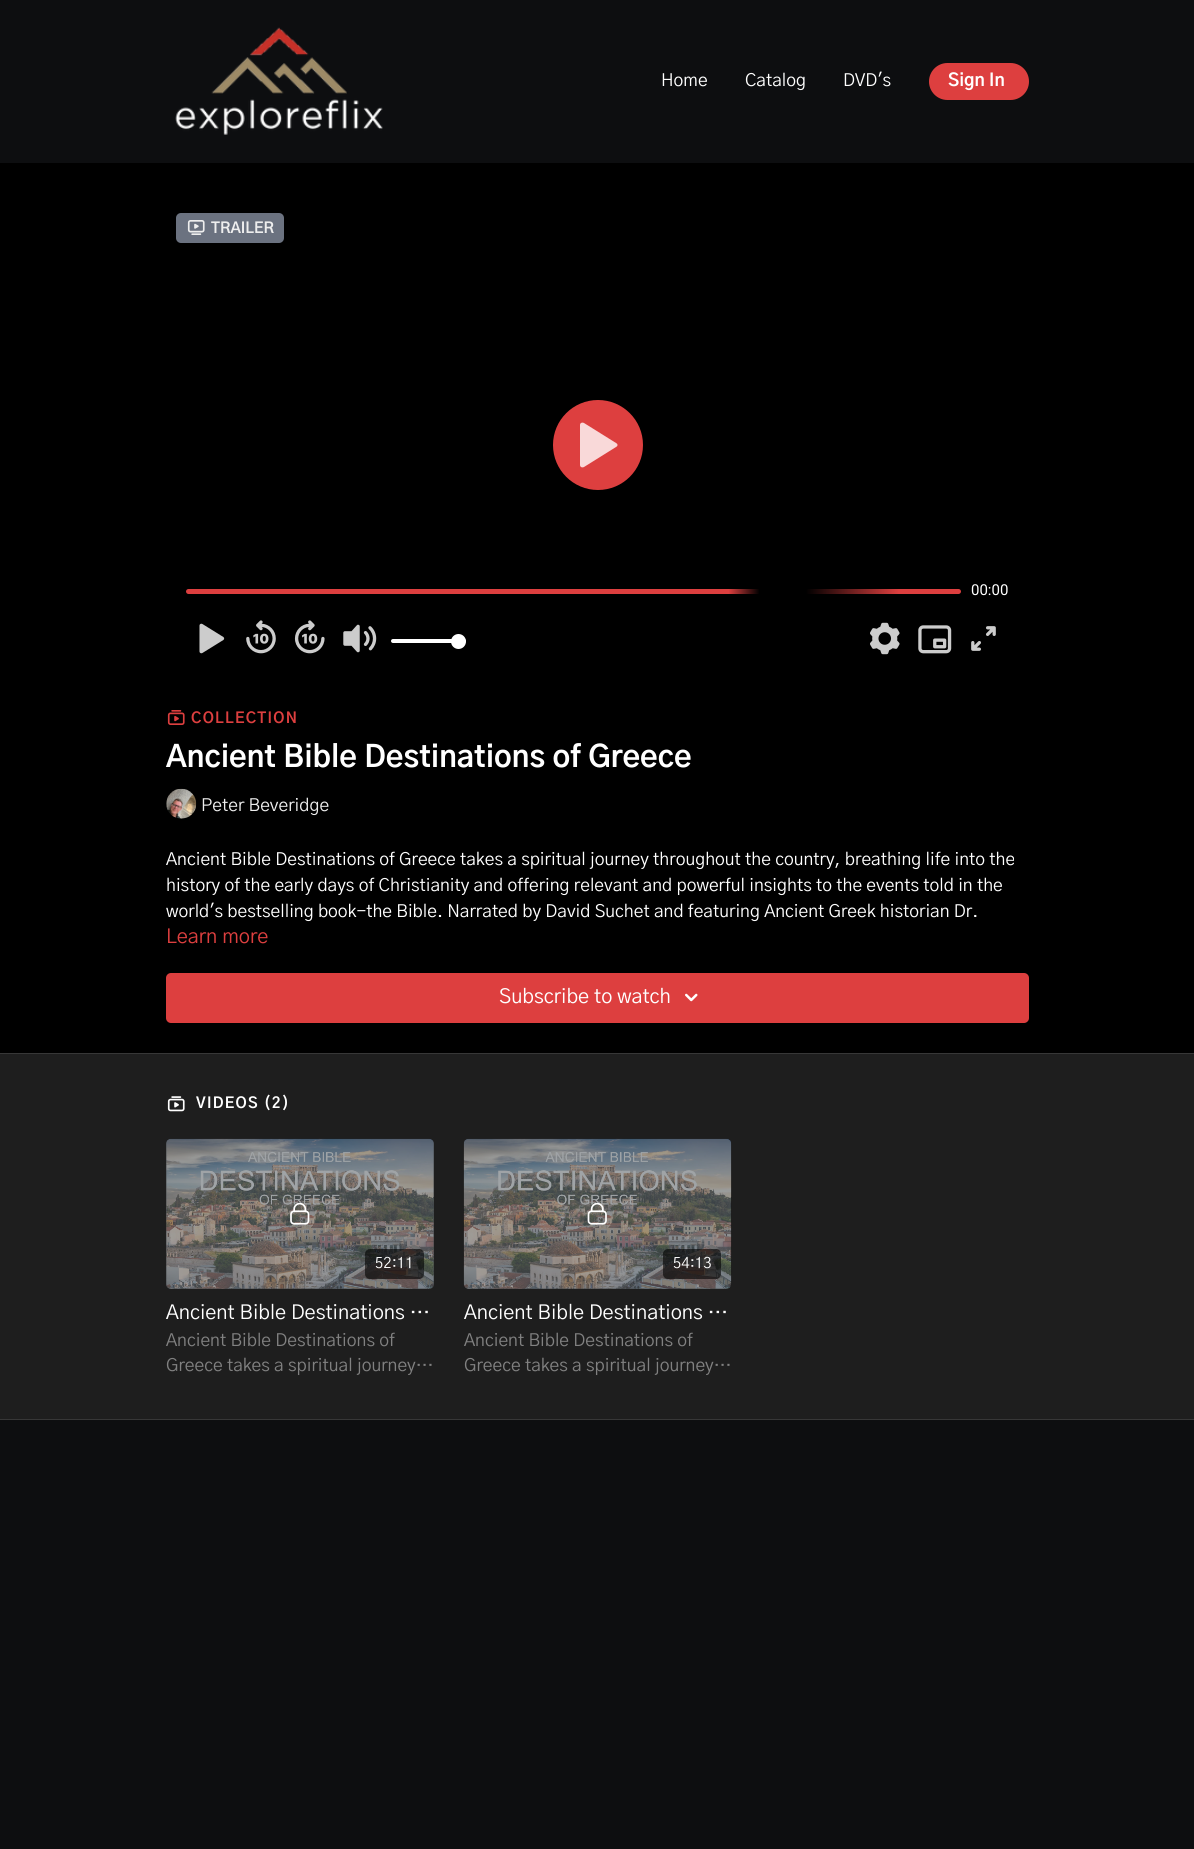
import math
import cairo


def write_spaced(ctx, x, y, s, letter, word):
	ctx.move_to(x, y)
	for ch in s:
		ctx.show_text(ch)
		ctx.rel_move_to(letter + word * (ch == ' '), 0)

def round_path(ctx, x, y, w, h, r):
	ctx.new_sub_path()
	for i, (u, v) in enumerate([(x + w - r, y + h - r), (x + r, y + h - r), (x + r, y + r), (x + w - r, y + r)]):
		ctx.arc(u, v, r, i * math.pi / 2, (i + 1) * math.pi / 2)
	ctx.close_path()

def paste(ctx, path, x, y, w, h):
	ctx.save()
	ctx.set_source_surface(cairo.ImageSurface.create_from_png(path), x, y)
	ctx.rectangle(x, y, w, h)
	ctx.fill()
	ctx.restore()

def draw(ctx):
	ctx.set_source_rgb(0.051, 0.055, 0.063)
	ctx.paint()
	paste(ctx, 'media/1.png', 175, 27, 208, 108)
	ctx.select_font_face('Gothic A1')
	ctx.set_font_size(17.5)
	ctx.set_source_rgb(1, 1, 1)
	for x, y, s in [
		(661, 86, 'Home'),
		(745, 86, 'Catalog'),
		(843, 86, 'DVD\'s'),
	]:
		ctx.move_to(x, y)
		ctx.show_text(s)
	ctx.set_source_rgb(0.867, 0.247, 0.247)
	round_path(ctx, 929, 63, 100, 37, 18.5)
	ctx.fill()
	ctx.select_font_face('Gothic A1', cairo.FONT_SLANT_NORMAL, cairo.FONT_WEIGHT_BOLD)
	ctx.set_source_rgb(1, 1, 1)
	ctx.move_to(948, 86)
	ctx.show_text('Sign In')
	ctx.set_source_rgb(0, 0, 0)
	ctx.rectangle(0, 163, 1194, 890)
	ctx.fill()
	ctx.set_source_rgb(0.42, 0.447, 0.502)
	round_path(ctx, 176, 213, 108, 30, 5)
	ctx.fill()
	paste(ctx, 'media/2.png', 187, 220, 18, 15)
	ctx.set_font_size(15)
	ctx.set_source_rgb(0.933, 0.933, 0.933)
	ctx.move_to(211, 233)
	ctx.show_text('TRAILER')
	ctx.set_source_rgb(0.867, 0.247, 0.247)
	ctx.new_path()
	ctx.arc(598, 445, 45, 0, 2 * math.pi)
	ctx.fill()
	ctx.set_source_rgb(0.973, 0.851, 0.851)
	ctx.new_path()
	ctx.move_to(584, 423)
	ctx.curve_to(582, 422, 580, 423, 580, 425)
	ctx.line_to(580, 465)
	ctx.curve_to(580, 467, 582, 468, 584, 467)
	ctx.line_to(616, 447)
	ctx.curve_to(618, 446, 618, 444, 616, 443)
	ctx.close_path()
	ctx.fill()
	gradient = cairo.LinearGradient(186, 594, 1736, 594)
	gradient.add_color_stop_rgba(0.35, 0.867, 0.247, 0.247, 1)
	gradient.add_color_stop_rgba(0.37, 0, 0, 0, 1)
	gradient.add_color_stop_rgba(0.4, 0, 0, 0, 1)
	gradient.add_color_stop_rgba(0.46, 0.867, 0.247, 0.247, 1)
	gradient.add_color_stop_rgba(1, 0.867, 0.247, 0.247, 1)
	ctx.set_source(gradient)
	round_path(ctx, 186, 589, 775, 5, 2.5)
	ctx.fill()
	ctx.select_font_face('Roboto')
	ctx.set_source_rgb(1, 1, 1)
	ctx.move_to(971, 595)
	ctx.show_text('00:00')
	paste(ctx, 'media/3.png', 199, 623, 26, 31)
	paste(ctx, 'media/4.png', 246, 620, 30, 34)
	paste(ctx, 'media/5.png', 294, 620, 31, 34)
	paste(ctx, 'media/6.png', 343, 624, 34, 29)
	round_path(ctx, 391, 639, 75, 4, 2)
	ctx.fill()
	ctx.arc(458.5, 641.5, 7.5, 0, 2 * math.pi)
	ctx.fill()
	paste(ctx, 'media/7.png', 870, 622, 30, 33)
	paste(ctx, 'media/8.png', 918, 625, 34, 29)
	paste(ctx, 'media/9.png', 971, 626, 25, 25)
	paste(ctx, 'media/10.png', 167, 710, 18, 15)
	ctx.select_font_face('Gothic A1', cairo.FONT_SLANT_NORMAL, cairo.FONT_WEIGHT_BOLD)
	ctx.set_source_rgb(0.867, 0.247, 0.247)
	write_spaced(ctx, 191, 723, 'COLLECTION', 1.25, 0)
	ctx.set_font_size(30)
	ctx.set_source_rgb(1, 1, 1)
	ctx.move_to(166, 767)
	ctx.show_text('Ancient Bible Destinations of Greece')
	paste(ctx, 'media/11.png', 166, 788, 31, 31)
	ctx.select_font_face('Gothic A1')
	ctx.set_font_size(17.5)
	ctx.set_source_rgb(0.933, 0.933, 0.933)
	ctx.move_to(201, 811)
	ctx.show_text('Peter Beveridge')
	ctx.set_source_rgb(1, 1, 1)
	for x, y, s in [
		(166, 865, 'Ancient Bible Destinations of Greece takes a spiritual journey throughout the country, breathing life into the'),
		(166, 891, 'history of the early days of Christianity and offering relevant and powerful insights to the events told in the'),
		(166, 917, 'world\'s bestselling book-the Bible. Narrated by David Suchet and featuring Ancient Greek historian Dr.'),
	]:
		ctx.move_to(x, y)
		ctx.show_text(s)
	ctx.set_font_size(20)
	ctx.set_source_rgb(0.867, 0.247, 0.247)
	ctx.move_to(166, 943)
	ctx.show_text('Learn more')
	round_path(ctx, 166, 973, 863, 50, 5)
	ctx.fill()
	ctx.set_source_rgb(1, 1, 1)
	ctx.move_to(499, 1003)
	ctx.show_text('Subscribe to watch')
	paste(ctx, 'media/12.png', 685, 993, 13, 9)
	ctx.set_source_rgb(0.118, 0.118, 0.118)
	ctx.rectangle(0, 1054, 1194, 365)
	ctx.fill()
	ctx.set_source_rgb(0.216, 0.216, 0.216)
	ctx.rectangle(0, 1053, 1194, 1)
	ctx.rectangle(0, 1419, 1194, 1)
	ctx.fill()
	paste(ctx, 'media/13.png', 167, 1096, 18, 16)
	ctx.select_font_face('Gothic A1', cairo.FONT_SLANT_NORMAL, cairo.FONT_WEIGHT_BOLD)
	ctx.set_font_size(15)
	ctx.set_source_rgb(1, 1, 1)
	write_spaced(ctx, 196, 1108, 'VIDEOS (2)', 1.25, 0)
	paste(ctx, 'media/14.png', 166, 1138, 268, 151)
	ctx.set_source_rgba(0.384, 0.404, 0.427, 0.6)
	round_path(ctx, 166, 1139, 268, 150, 5)
	ctx.fill()
	paste(ctx, 'media/15.png', 290, 1203, 20, 22)
	ctx.set_source_rgba(0, 0, 0, 0.6)
	round_path(ctx, 365, 1249, 59, 30, 5)
	ctx.fill()
	ctx.select_font_face('Gothic A1')
	ctx.set_source_rgb(1, 1, 1)
	ctx.move_to(375, 1268)
	ctx.show_text('52:11')
	ctx.set_font_size(20)
	ctx.move_to(166, 1319)
	ctx.show_text('Ancient Bible Destinations …')
	ctx.set_font_size(17.5)
	ctx.set_source_rgb(0.506, 0.506, 0.506)
	ctx.move_to(166, 1346)
	ctx.show_text('Ancient Bible Destinations of')
	ctx.move_to(166, 1371)
	ctx.show_text('Greece takes a spiritual journey…')
	paste(ctx, 'media/16.png', 463, 1138, 269, 151)
	ctx.set_source_rgba(0.384, 0.404, 0.427, 0.6)
	round_path(ctx, 464, 1139, 267, 150, 5)
	ctx.fill()
	paste(ctx, 'media/17.png', 587, 1203, 20, 22)
	ctx.set_source_rgba(0, 0, 0, 0.6)
	round_path(ctx, 663, 1249, 58, 30, 5)
	ctx.fill()
	ctx.set_font_size(15)
	ctx.set_source_rgb(1, 1, 1)
	ctx.move_to(673, 1268)
	ctx.show_text('54:13')
	ctx.set_font_size(20)
	ctx.move_to(464, 1319)
	ctx.show_text('Ancient Bible Destinations …')
	ctx.set_font_size(17.5)
	ctx.set_source_rgb(0.506, 0.506, 0.506)
	ctx.move_to(464, 1346)
	ctx.show_text('Ancient Bible Destinations of')
	ctx.move_to(464, 1371)
	ctx.show_text('Greece takes a spiritual journey…')


surface = cairo.ImageSurface(cairo.FORMAT_RGB24, 1194, 1849)
ctx = cairo.Context(surface)
options = cairo.FontOptions()
options.set_hint_metrics(cairo.HINT_METRICS_OFF)
options.set_hint_style(cairo.HINT_STYLE_NONE)
ctx.set_font_options(options)
ctx.set_miter_limit(4)
draw(ctx)
surface.write_to_png('image.png')
